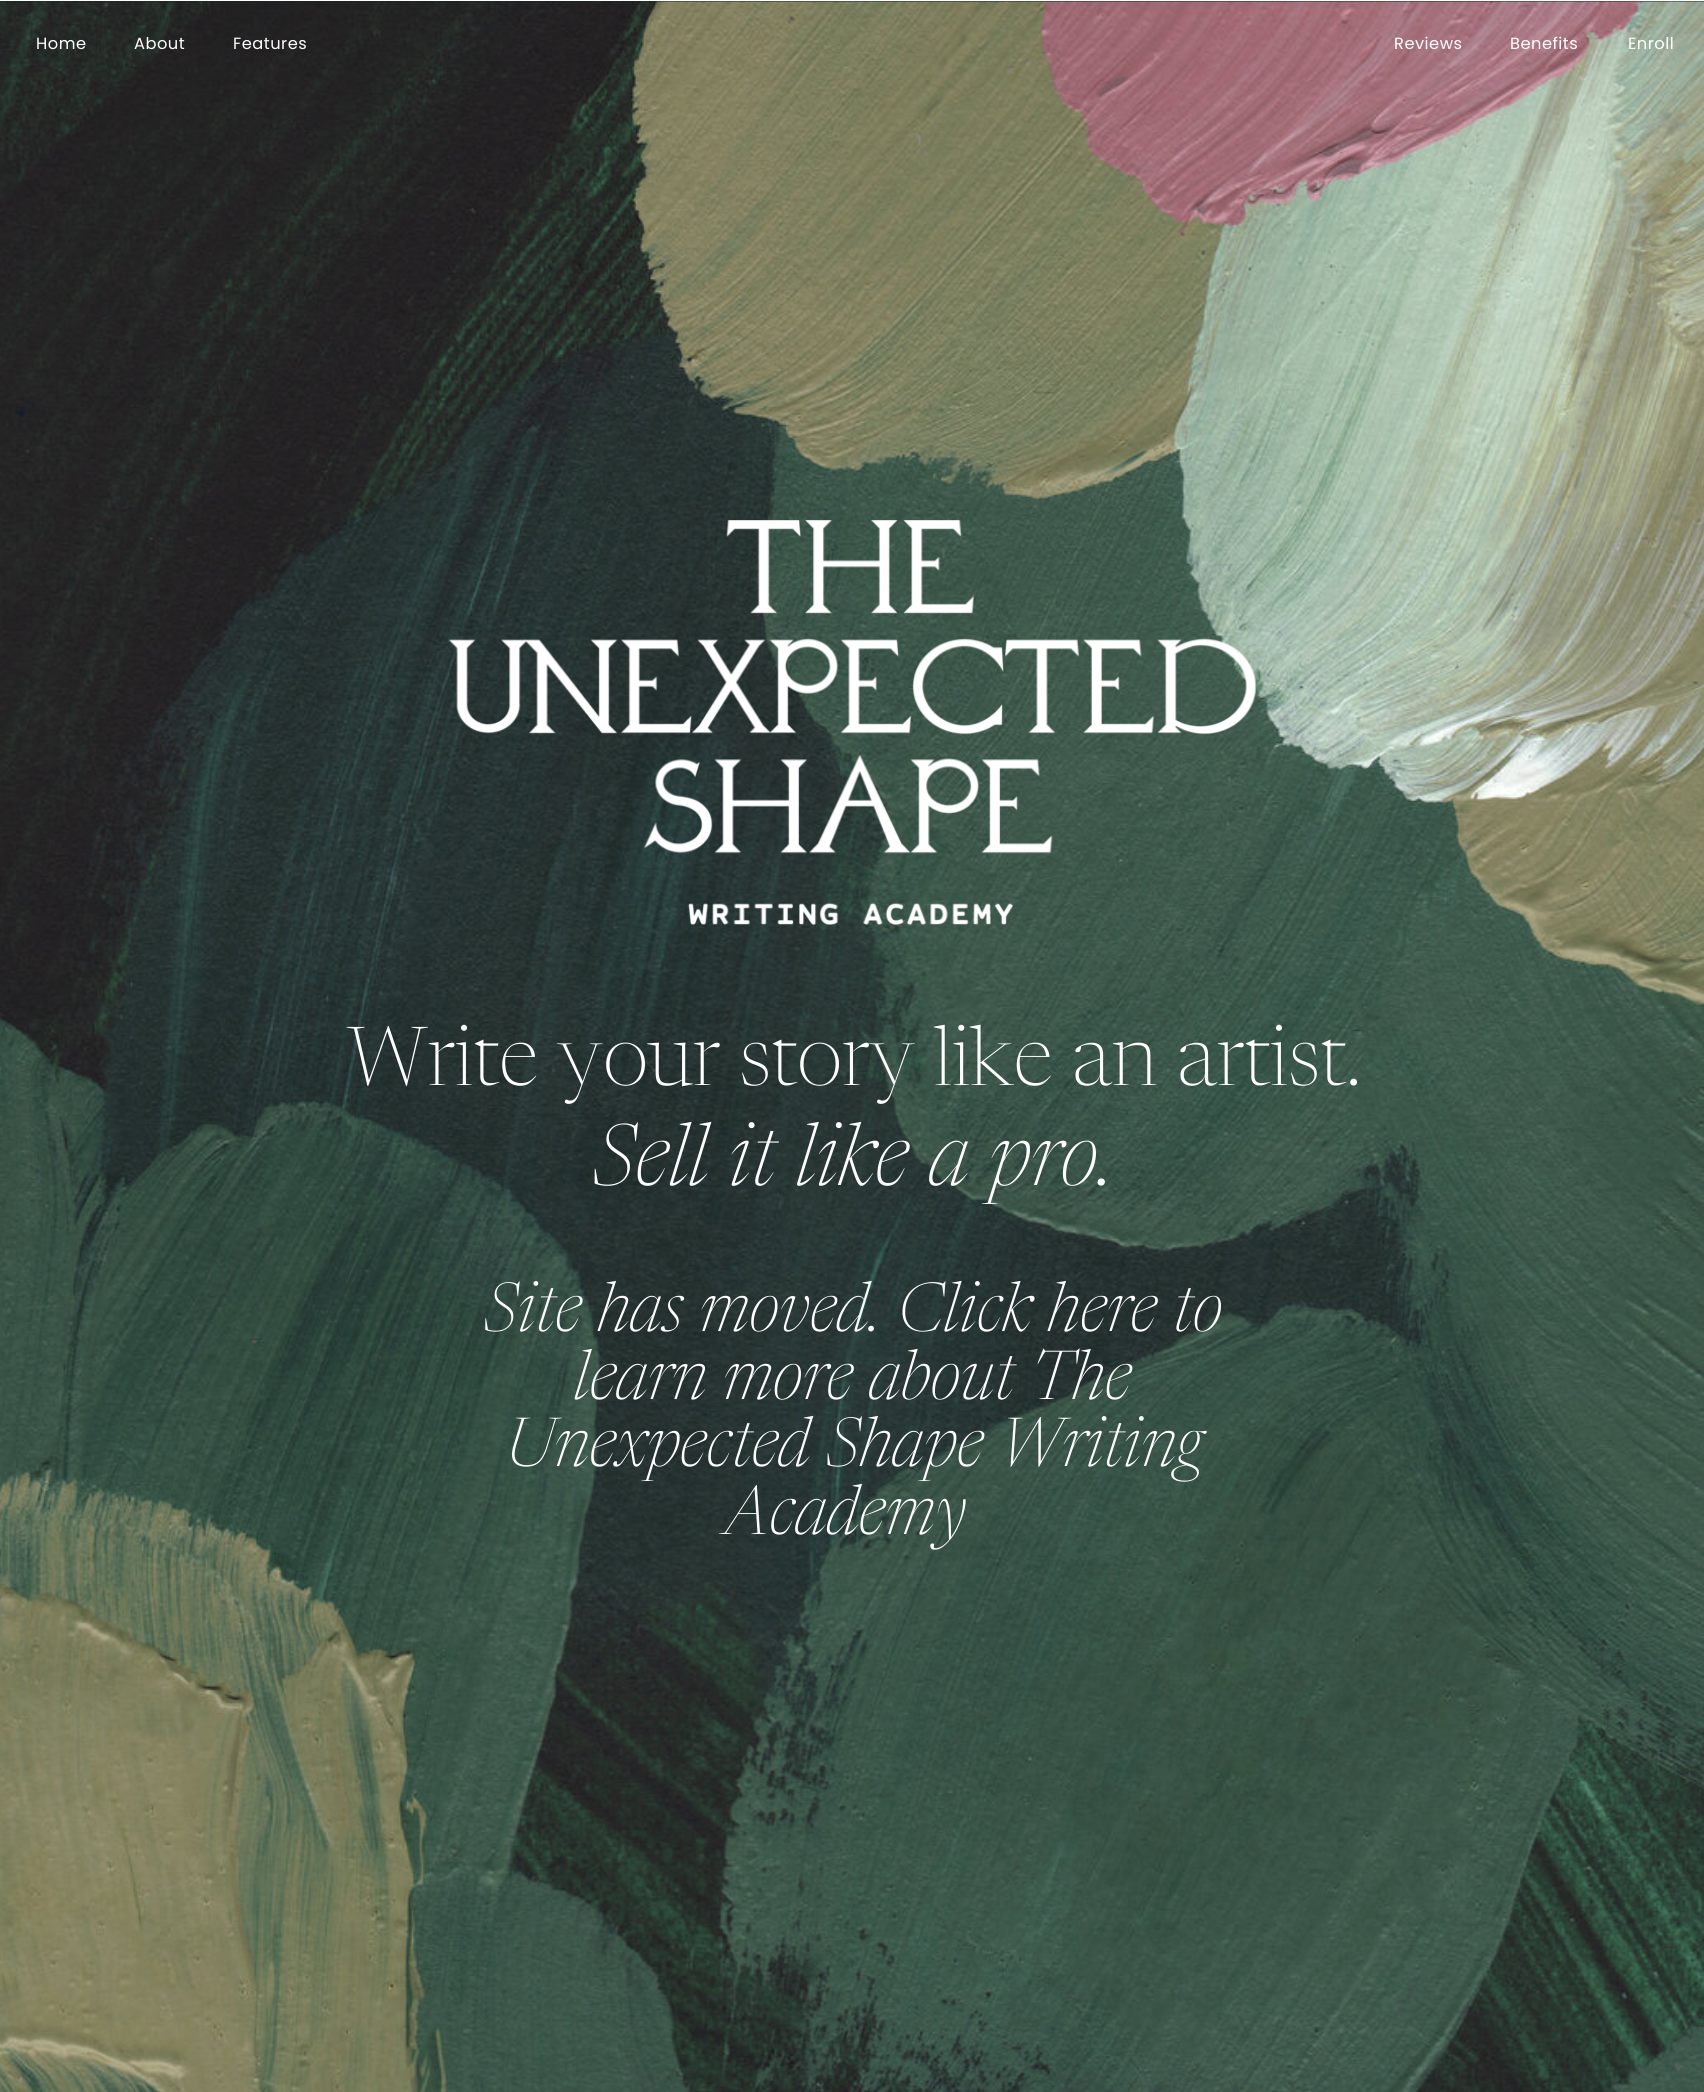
import math
import cairo


def write_spaced(ctx, x, y, s, letter, word):
	ctx.move_to(x, y)
	for ch in s:
		ctx.show_text(ch)
		ctx.rel_move_to(letter + word * (ch == ' '), 0)

def paste(ctx, path, x, y, w, h):
	ctx.save()
	ctx.set_source_surface(cairo.ImageSurface.create_from_png(path), x, y)
	ctx.rectangle(x, y, w, h)
	ctx.fill()
	ctx.restore()

def draw(ctx):
	ctx.set_source_rgb(1, 1, 1)
	ctx.paint()
	ctx.set_source_rgb(0.078, 0.141, 0.137)
	ctx.rectangle(0, 1, 1704, 1)
	ctx.fill()
	paste(ctx, 'media/3.png', 0, 1, 1704, 2091)
	paste(ctx, 'media/1.png', 851, 1, 3, 1)
	paste(ctx, 'media/2.png', 851, 1, 3, 1)
	ctx.select_font_face('Poppins')
	ctx.set_font_size(16.25)
	ctx.set_source_rgb(1, 1, 1)
	for x, y, s in [
		(36, 49, 'Home'),
		(134, 49, 'About'),
		(233, 49, 'Features'),
		(1394, 49, 'Reviews'),
		(1510, 49, 'Benefits'),
		(1628, 49, 'Enroll'),
	]:
		write_spaced(ctx, x, y, s, 0.5, 0)
	paste(ctx, 'media/4.png', 448, 520, 809, 405)
	ctx.select_font_face('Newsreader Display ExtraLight')
	ctx.set_font_size(81.25)
	ctx.move_to(347, 1085)
	ctx.show_text('Write your story like an artist.')
	ctx.select_font_face('Newsreader Display ExtraLight', cairo.FONT_SLANT_ITALIC)
	ctx.set_font_size(85)
	ctx.move_to(593, 1185)
	ctx.show_text('Sell it like a pro.')
	ctx.set_font_size(67.5)
	for x, y, s in [
		(484, 1331, 'Site has moved. Click here to'),
		(574, 1399, 'learn more about The'),
		(505, 1466, 'Unexpected Shape Writing'),
		(724, 1534, 'Academy'),
	]:
		ctx.move_to(x, y)
		ctx.show_text(s)


surface = cairo.ImageSurface(cairo.FORMAT_RGB24, 1704, 2092)
ctx = cairo.Context(surface)
options = cairo.FontOptions()
options.set_hint_metrics(cairo.HINT_METRICS_OFF)
options.set_hint_style(cairo.HINT_STYLE_NONE)
ctx.set_font_options(options)
ctx.set_miter_limit(4)
draw(ctx)
surface.write_to_png('image.png')
